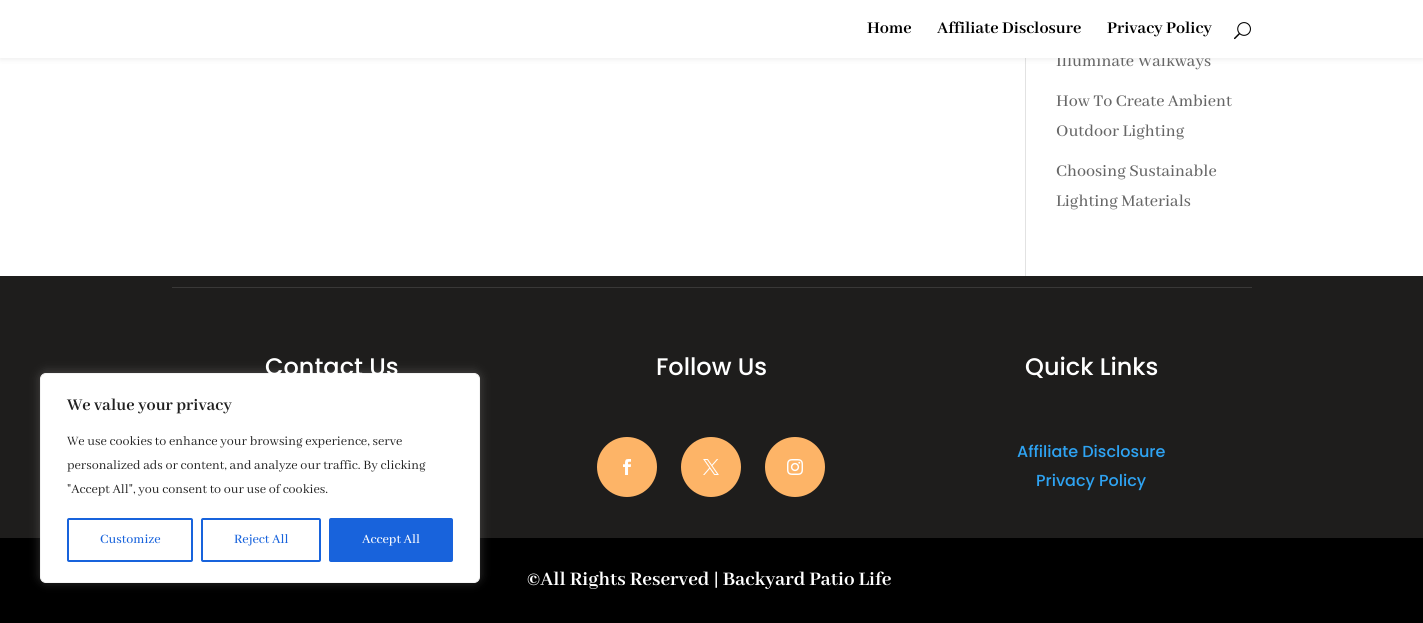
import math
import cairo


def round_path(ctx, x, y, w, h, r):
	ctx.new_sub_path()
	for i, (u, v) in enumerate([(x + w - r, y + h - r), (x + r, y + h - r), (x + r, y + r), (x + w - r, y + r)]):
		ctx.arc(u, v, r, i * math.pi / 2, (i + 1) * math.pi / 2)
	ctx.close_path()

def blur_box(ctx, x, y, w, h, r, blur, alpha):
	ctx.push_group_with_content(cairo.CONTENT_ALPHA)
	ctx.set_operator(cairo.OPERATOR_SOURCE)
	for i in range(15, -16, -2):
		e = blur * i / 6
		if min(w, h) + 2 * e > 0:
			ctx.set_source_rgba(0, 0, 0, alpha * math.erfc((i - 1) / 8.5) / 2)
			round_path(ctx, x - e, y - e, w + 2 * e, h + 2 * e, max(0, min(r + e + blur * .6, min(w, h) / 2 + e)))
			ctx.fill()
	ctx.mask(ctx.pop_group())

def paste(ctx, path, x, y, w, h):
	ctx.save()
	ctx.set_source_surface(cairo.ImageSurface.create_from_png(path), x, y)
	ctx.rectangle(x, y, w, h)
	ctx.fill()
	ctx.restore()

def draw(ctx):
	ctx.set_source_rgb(1, 1, 1)
	ctx.paint()
	ctx.set_source_rgb(0.118, 0.114, 0.11)
	ctx.rectangle(0, 276, 1423, 262)
	ctx.fill()
	ctx.set_source_rgb(0, 0, 0)
	ctx.rectangle(0, 538, 1423, 85)
	ctx.fill()
	ctx.set_source_rgb(0.675, 0.671, 0.671)
	blur_box(ctx, 40, 372, 440, 210, 6, 5, 0.3)
	ctx.set_source_rgb(1, 1, 1)
	round_path(ctx, 40.5, 373.5, 439, 209, 5.5)
	ctx.fill_preserve()
	ctx.set_source_rgb(0.957, 0.957, 0.957)
	ctx.set_line_width(1)
	ctx.stroke()
	ctx.select_font_face('Abhaya Libre', cairo.FONT_SLANT_NORMAL, cairo.FONT_WEIGHT_BOLD)
	ctx.set_font_size(18)
	ctx.set_source_rgb(0.129, 0.129, 0.129)
	ctx.move_to(67, 410)
	ctx.show_text('We value your privacy')
	ctx.select_font_face('Abhaya Libre')
	ctx.set_font_size(14)
	for x, y, s in [
		(67, 445, 'We use cookies to enhance your browsing experience, serve'),
		(67, 469, 'personalized ads or content, and analyze our traffic. By clicking'),
		(67, 493, '"Accept All", you consent to our use of cookies.'),
	]:
		ctx.move_to(x, y)
		ctx.show_text(s)
	round_path(ctx, 68, 519, 124, 42, 1)
	ctx.set_source_rgb(0.094, 0.388, 0.863)
	ctx.set_line_width(2)
	ctx.stroke()
	ctx.select_font_face('Abhaya Libre Medium Medium')
	ctx.move_to(100, 543)
	ctx.show_text('Customize')
	round_path(ctx, 202, 519, 118, 42, 1)
	ctx.stroke()
	ctx.move_to(234, 543)
	ctx.show_text('Reject All')
	round_path(ctx, 330, 519, 122, 42, 1)
	ctx.fill_preserve()
	ctx.stroke()
	ctx.set_source_rgb(1, 1, 1)
	ctx.move_to(362, 543)
	ctx.show_text('Accept All')
	ctx.set_source_rgb(0.886, 0.886, 0.886)
	ctx.rectangle(1025, 58, 1, 218)
	ctx.fill()
	ctx.set_source_rgb(0, 0, 0)
	blur_box(ctx, 0, 0, 1423, 58, 0, 3.5, 0.1)
	ctx.set_font_size(18)
	ctx.set_source_rgb(0.4, 0.4, 0.4)
	ctx.move_to(1056, 66)
	ctx.show_text('Illuminate Walkways')
	ctx.set_source_rgb(1, 1, 1)
	ctx.rectangle(0, 0, 1423, 58)
	ctx.fill()
	ctx.select_font_face('Abhaya Libre', cairo.FONT_SLANT_NORMAL, cairo.FONT_WEIGHT_BOLD)
	ctx.set_source_rgb(0, 0, 0)
	for x, y, s in [
		(867, 33, 'Home'),
		(937, 33, 'Affiliate Disclosure'),
		(1107, 33, 'Privacy Policy'),
	]:
		ctx.move_to(x, y)
		ctx.show_text(s)
	paste(ctx, 'media/1.png', 1234, 22, 17, 18)
	ctx.select_font_face('Abhaya Libre Medium Medium')
	ctx.set_source_rgb(0.4, 0.4, 0.4)
	for x, y, s in [
		(1056, 106, 'How To Create Ambient'),
		(1056, 136, 'Outdoor Lighting'),
		(1056, 176, 'Choosing Sustainable'),
		(1056, 206, 'Lighting Materials'),
	]:
		ctx.move_to(x, y)
		ctx.show_text(s)
	ctx.set_source_rgb(0.224, 0.22, 0.216)
	ctx.rectangle(172, 287, 1080, 1)
	ctx.fill()
	ctx.select_font_face('Poppins Medium')
	ctx.set_font_size(24)
	ctx.set_source_rgb(1, 1, 1)
	ctx.move_to(265, 375)
	ctx.show_text('Contact Us')
	ctx.move_to(656, 375)
	ctx.show_text('Follow Us')
	ctx.set_source_rgb(0.992, 0.706, 0.404)
	ctx.new_path()
	ctx.arc(627, 467, 30, 0, 2 * math.pi)
	ctx.fill()
	paste(ctx, 'media/2.png', 623, 459, 8, 16)
	ctx.arc(711, 467, 30, 0, 2 * math.pi)
	ctx.fill()
	paste(ctx, 'media/3.png', 703, 459, 16, 16)
	ctx.arc(795, 467, 30, 0, 2 * math.pi)
	ctx.fill()
	paste(ctx, 'media/4.png', 787, 459, 16, 16)
	ctx.set_source_rgb(1, 1, 1)
	ctx.move_to(1025, 375)
	ctx.show_text('Quick Links')
	ctx.set_font_size(16)
	ctx.set_source_rgb(0.18, 0.639, 0.949)
	ctx.move_to(1017, 457)
	ctx.show_text('Affiliate Disclosure')
	ctx.move_to(1036, 486)
	ctx.show_text('Privacy Policy')
	ctx.select_font_face('Abhaya Libre', cairo.FONT_SLANT_NORMAL, cairo.FONT_WEIGHT_BOLD)
	ctx.set_font_size(21)
	ctx.set_source_rgb(1, 1, 1)
	ctx.move_to(527, 585)
	ctx.show_text('©All Rights Reserved | Backyard Patio Life')


surface = cairo.ImageSurface(cairo.FORMAT_RGB24, 1423, 623)
ctx = cairo.Context(surface)
options = cairo.FontOptions()
options.set_hint_metrics(cairo.HINT_METRICS_OFF)
options.set_hint_style(cairo.HINT_STYLE_NONE)
ctx.set_font_options(options)
ctx.set_miter_limit(4)
draw(ctx)
surface.write_to_png('image.png')
